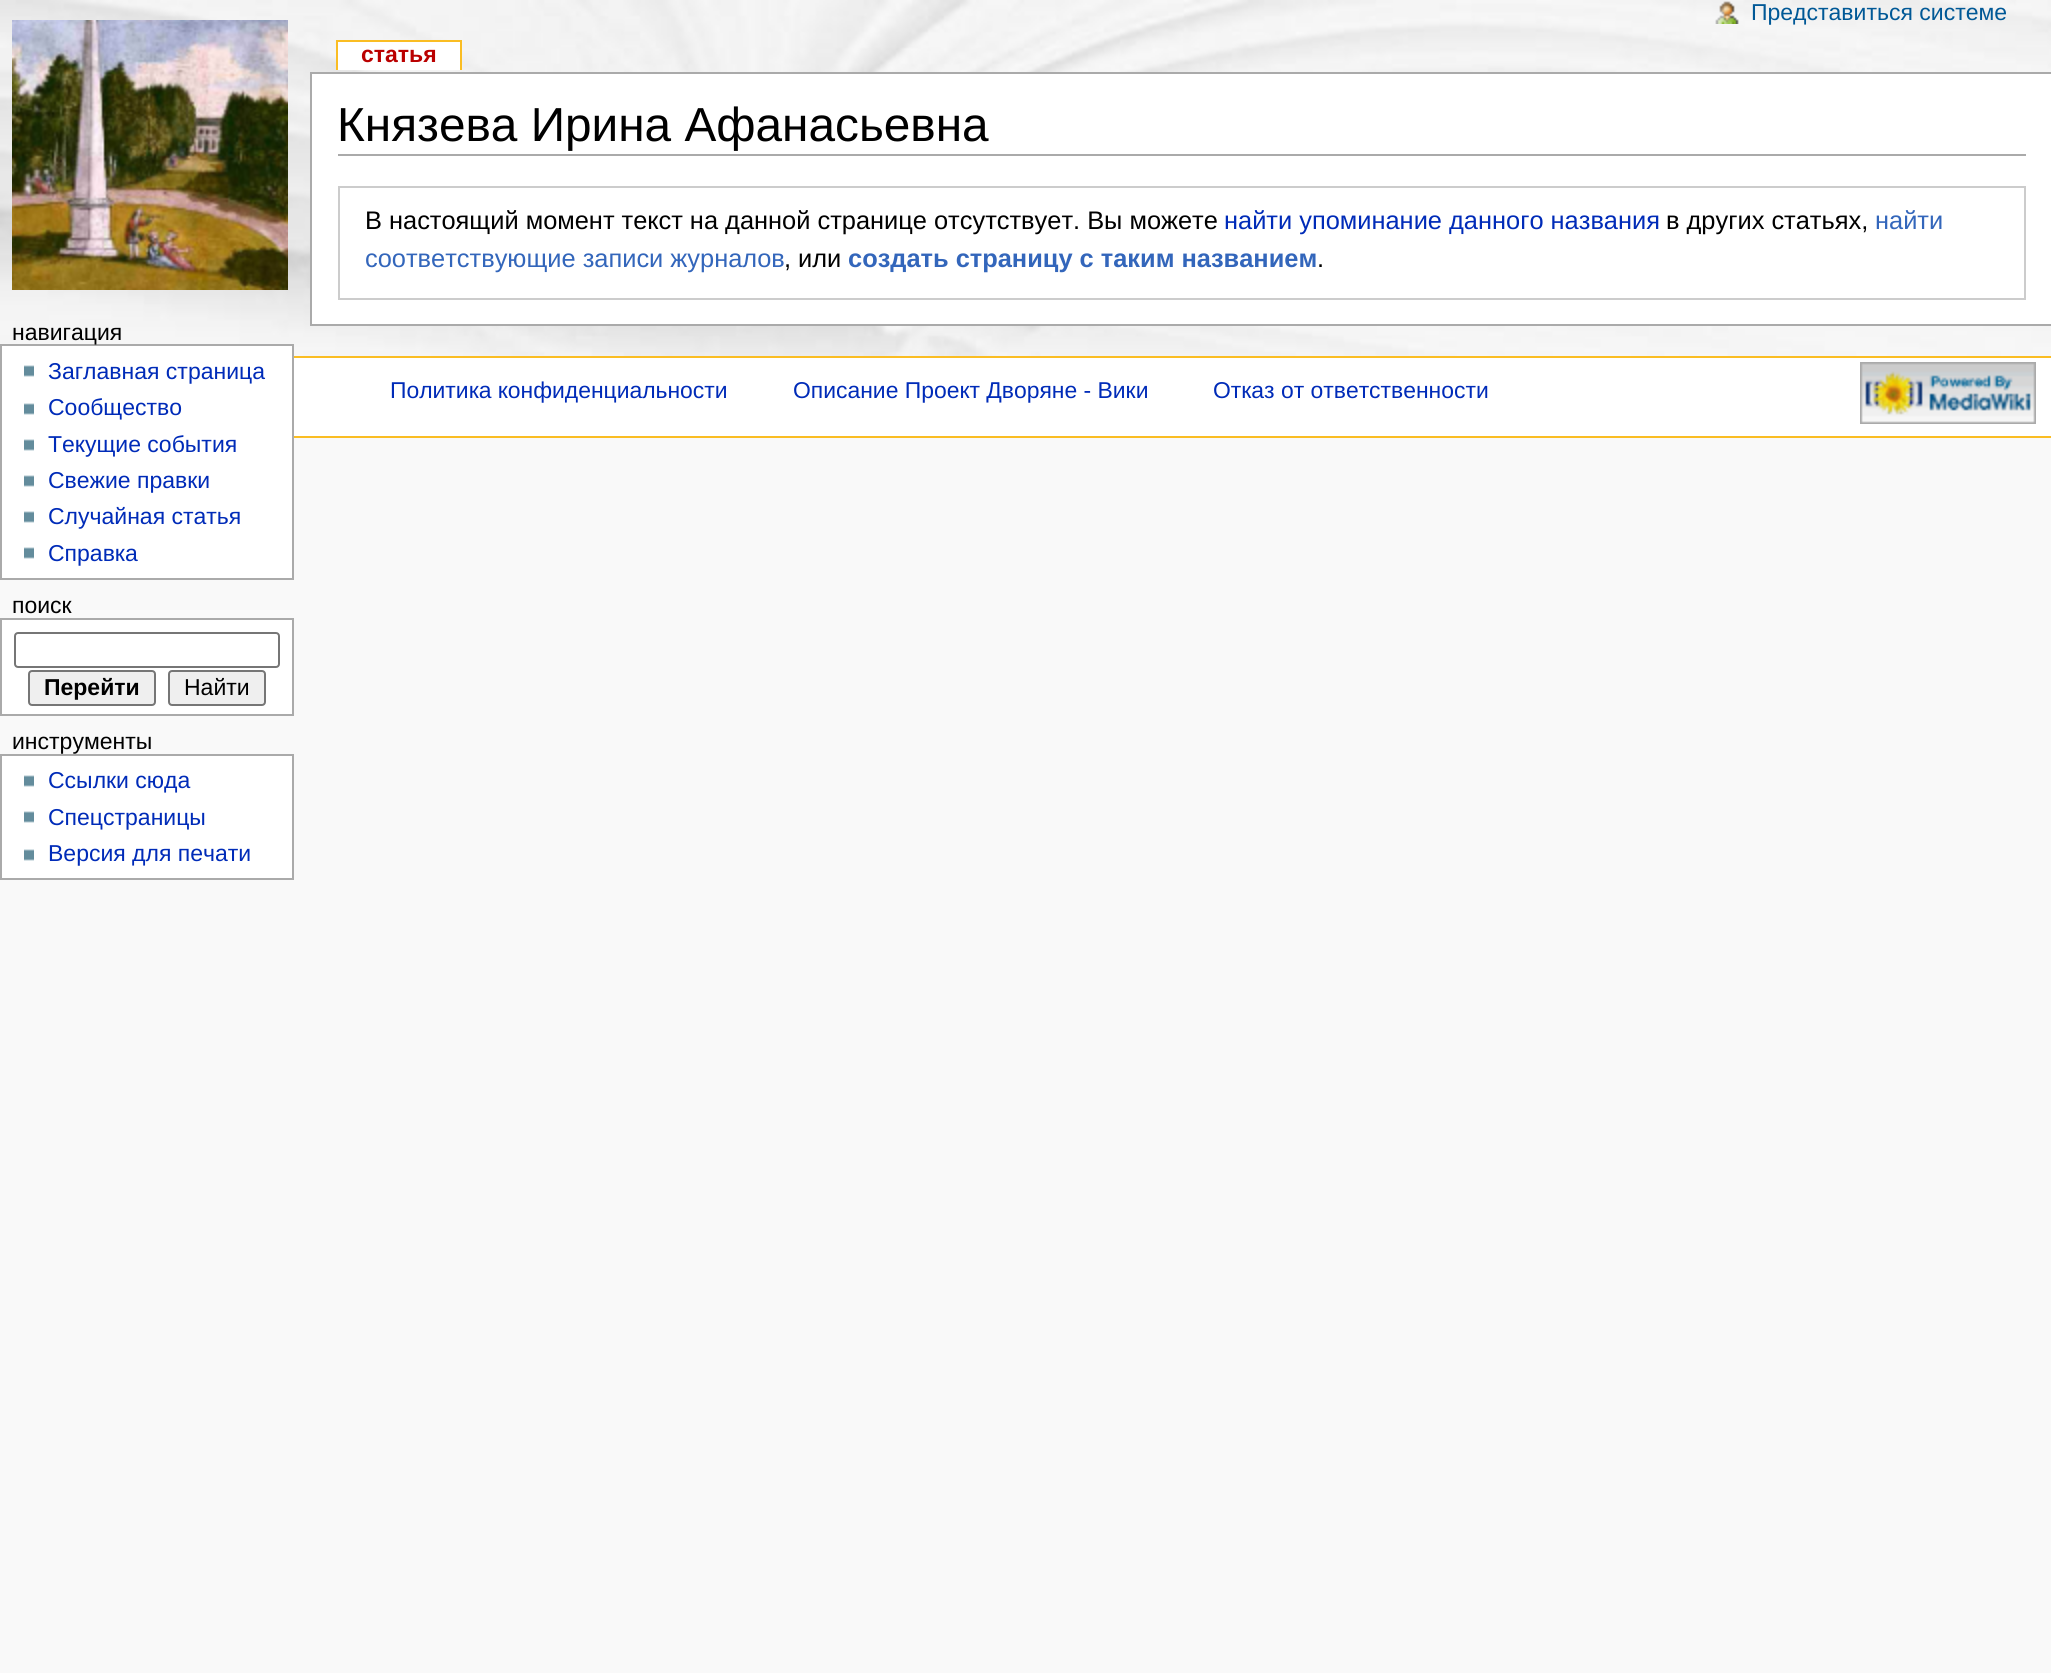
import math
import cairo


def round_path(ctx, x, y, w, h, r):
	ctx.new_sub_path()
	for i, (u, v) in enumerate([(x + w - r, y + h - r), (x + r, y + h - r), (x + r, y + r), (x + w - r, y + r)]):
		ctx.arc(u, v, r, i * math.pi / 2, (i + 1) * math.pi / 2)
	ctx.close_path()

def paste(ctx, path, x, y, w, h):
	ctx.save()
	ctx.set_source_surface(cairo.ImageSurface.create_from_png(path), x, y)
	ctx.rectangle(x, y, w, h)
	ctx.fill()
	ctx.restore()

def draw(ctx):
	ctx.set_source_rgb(0.976, 0.976, 0.976)
	ctx.paint()
	paste(ctx, 'media/1.png', 0, 0, 2051, 356)
	paste(ctx, 'media/2.png', 1715, 1, 24, 23)
	ctx.select_font_face('Liberation Sans')
	ctx.set_font_size(23)
	ctx.set_source_rgb(0, 0.345, 0.588)
	ctx.move_to(1751, 20)
	ctx.show_text('Представиться системе')
	paste(ctx, 'media/3.png', 12, 20, 276, 270)
	ctx.set_source_rgb(1, 1, 1)
	ctx.rectangle(338, 42, 122, 28)
	ctx.fill()
	ctx.select_font_face('Liberation Sans', cairo.FONT_SLANT_NORMAL, cairo.FONT_WEIGHT_BOLD)
	ctx.set_source_rgb(0.729, 0, 0)
	ctx.move_to(361, 62)
	ctx.show_text('статья')
	ctx.set_source_rgb(0.98, 0.741, 0.137)
	ctx.rectangle(336, 40, 126, 2)
	ctx.rectangle(460, 40, 2, 30)
	ctx.rectangle(336, 40, 2, 30)
	ctx.fill()
	ctx.set_source_rgb(1, 1, 1)
	ctx.rectangle(1, 345, 292, 234)
	ctx.fill_preserve()
	ctx.set_source_rgb(0.667, 0.667, 0.667)
	ctx.stroke()
	ctx.select_font_face('Liberation Sans')
	ctx.set_source_rgb(0, 0, 0)
	ctx.move_to(12, 340)
	ctx.show_text('навигация')
	paste(ctx, 'media/4.png', 24, 365, 10, 12)
	ctx.set_source_rgb(0, 0.169, 0.722)
	ctx.move_to(48, 379)
	ctx.show_text('Заглавная страница')
	paste(ctx, 'media/4.png', 24, 403, 10, 12)
	ctx.move_to(48, 415)
	ctx.show_text('Сообщество')
	paste(ctx, 'media/4.png', 24, 439, 10, 12)
	ctx.move_to(48, 452)
	ctx.show_text('Текущие события')
	paste(ctx, 'media/4.png', 24, 475, 10, 12)
	ctx.move_to(48, 488)
	ctx.show_text('Свежие правки')
	paste(ctx, 'media/4.png', 24, 511, 10, 12)
	ctx.move_to(48, 524)
	ctx.show_text('Случайная статья')
	paste(ctx, 'media/4.png', 24, 547, 10, 12)
	ctx.move_to(48, 561)
	ctx.show_text('Справка')
	ctx.set_source_rgb(0, 0, 0)
	ctx.move_to(12, 613)
	ctx.show_text('поиск')
	ctx.set_source_rgb(1, 1, 1)
	ctx.rectangle(1, 619, 292, 96)
	ctx.fill_preserve()
	ctx.set_source_rgb(0.667, 0.667, 0.667)
	ctx.stroke()
	round_path(ctx, 15, 633, 264, 34, 3)
	ctx.set_source_rgb(0.463, 0.463, 0.463)
	ctx.stroke()
	ctx.set_source_rgb(0.937, 0.937, 0.937)
	round_path(ctx, 29, 671, 126, 34, 3)
	ctx.fill_preserve()
	ctx.set_source_rgb(0.463, 0.463, 0.463)
	ctx.stroke()
	ctx.select_font_face('Liberation Sans', cairo.FONT_SLANT_NORMAL, cairo.FONT_WEIGHT_BOLD)
	ctx.set_source_rgb(0, 0, 0)
	ctx.move_to(44, 695)
	ctx.show_text('Перейти')
	ctx.set_source_rgb(0.937, 0.937, 0.937)
	round_path(ctx, 169, 671, 96, 34, 3)
	ctx.fill_preserve()
	ctx.set_source_rgb(0.463, 0.463, 0.463)
	ctx.stroke()
	ctx.select_font_face('Liberation Sans')
	ctx.set_source_rgb(0, 0, 0)
	ctx.move_to(184, 695)
	ctx.show_text('Найти')
	ctx.move_to(12, 749)
	ctx.show_text('инструменты')
	ctx.set_source_rgb(1, 1, 1)
	ctx.rectangle(1, 755, 292, 124)
	ctx.fill_preserve()
	ctx.set_source_rgb(0.667, 0.667, 0.667)
	ctx.stroke()
	paste(ctx, 'media/4.png', 24, 775, 10, 12)
	ctx.set_source_rgb(0, 0.169, 0.722)
	ctx.move_to(48, 788)
	ctx.show_text('Ссылки сюда')
	paste(ctx, 'media/4.png', 24, 811, 10, 12)
	ctx.move_to(48, 825)
	ctx.show_text('Спецстраницы')
	paste(ctx, 'media/4.png', 24, 849, 10, 12)
	ctx.move_to(48, 861)
	ctx.show_text('Версия для печати')
	ctx.set_source_rgb(1, 1, 1)
	ctx.rectangle(312, 74, 1739, 250)
	ctx.fill()
	ctx.set_source_rgb(0.667, 0.667, 0.667)
	ctx.rectangle(310, 72, 1741, 2)
	ctx.rectangle(310, 324, 1741, 2)
	ctx.rectangle(310, 72, 2, 254)
	ctx.rectangle(338, 154, 1688, 2)
	ctx.fill()
	ctx.set_font_size(47.75)
	ctx.set_source_rgb(0, 0, 0)
	ctx.move_to(337, 141)
	ctx.show_text('Князева Ирина Афанасьевна')
	ctx.rectangle(339, 187, 1686, 112)
	ctx.set_source_rgb(0.8, 0.8, 0.8)
	ctx.stroke()
	ctx.set_font_size(25.4)
	ctx.set_source_rgb(0, 0, 0)
	ctx.move_to(365, 229)
	ctx.show_text('В настоящий момент текст на данной странице отсутствует. Вы можете')
	ctx.set_source_rgb(0, 0.169, 0.722)
	ctx.move_to(1224, 229)
	ctx.show_text('найти упоминание данного названия')
	ctx.set_source_rgb(0, 0, 0)
	ctx.move_to(1666, 229)
	ctx.show_text('в других статьях,')
	ctx.set_source_rgb(0.2, 0.4, 0.733)
	ctx.move_to(1875, 229)
	ctx.show_text('найти')
	ctx.move_to(365, 267)
	ctx.show_text('соответствующие записи журналов')
	ctx.set_source_rgb(0, 0, 0)
	ctx.move_to(784, 267)
	ctx.show_text(', или')
	ctx.select_font_face('Liberation Sans', cairo.FONT_SLANT_NORMAL, cairo.FONT_WEIGHT_BOLD)
	ctx.set_source_rgb(0.2, 0.4, 0.733)
	ctx.move_to(848, 267)
	ctx.show_text('создать страницу с таким названием')
	ctx.select_font_face('Liberation Sans')
	ctx.set_source_rgb(0, 0, 0)
	ctx.move_to(1317, 267)
	ctx.show_text('.')
	ctx.set_source_rgb(1, 1, 1)
	ctx.rectangle(294, 358, 1757, 78)
	ctx.fill()
	ctx.set_source_rgb(0.98, 0.741, 0.137)
	ctx.rectangle(294, 356, 1757, 2)
	ctx.rectangle(294, 436, 1757, 2)
	ctx.fill()
	ctx.set_font_size(22.9)
	ctx.set_source_rgb(0, 0.169, 0.722)
	for x, y, s in [
		(390, 398, 'Политика конфиденциальности'),
		(793, 398, 'Описание Проект Дворяне - Вики'),
		(1213, 398, 'Отказ от ответственности'),
	]:
		ctx.move_to(x, y)
		ctx.show_text(s)
	paste(ctx, 'media/5.png', 1860, 362, 176, 62)


surface = cairo.ImageSurface(cairo.FORMAT_RGB24, 2051, 1673)
ctx = cairo.Context(surface)
options = cairo.FontOptions()
options.set_hint_metrics(cairo.HINT_METRICS_OFF)
options.set_hint_style(cairo.HINT_STYLE_NONE)
ctx.set_font_options(options)
ctx.set_miter_limit(4)
draw(ctx)
surface.write_to_png('image.png')
